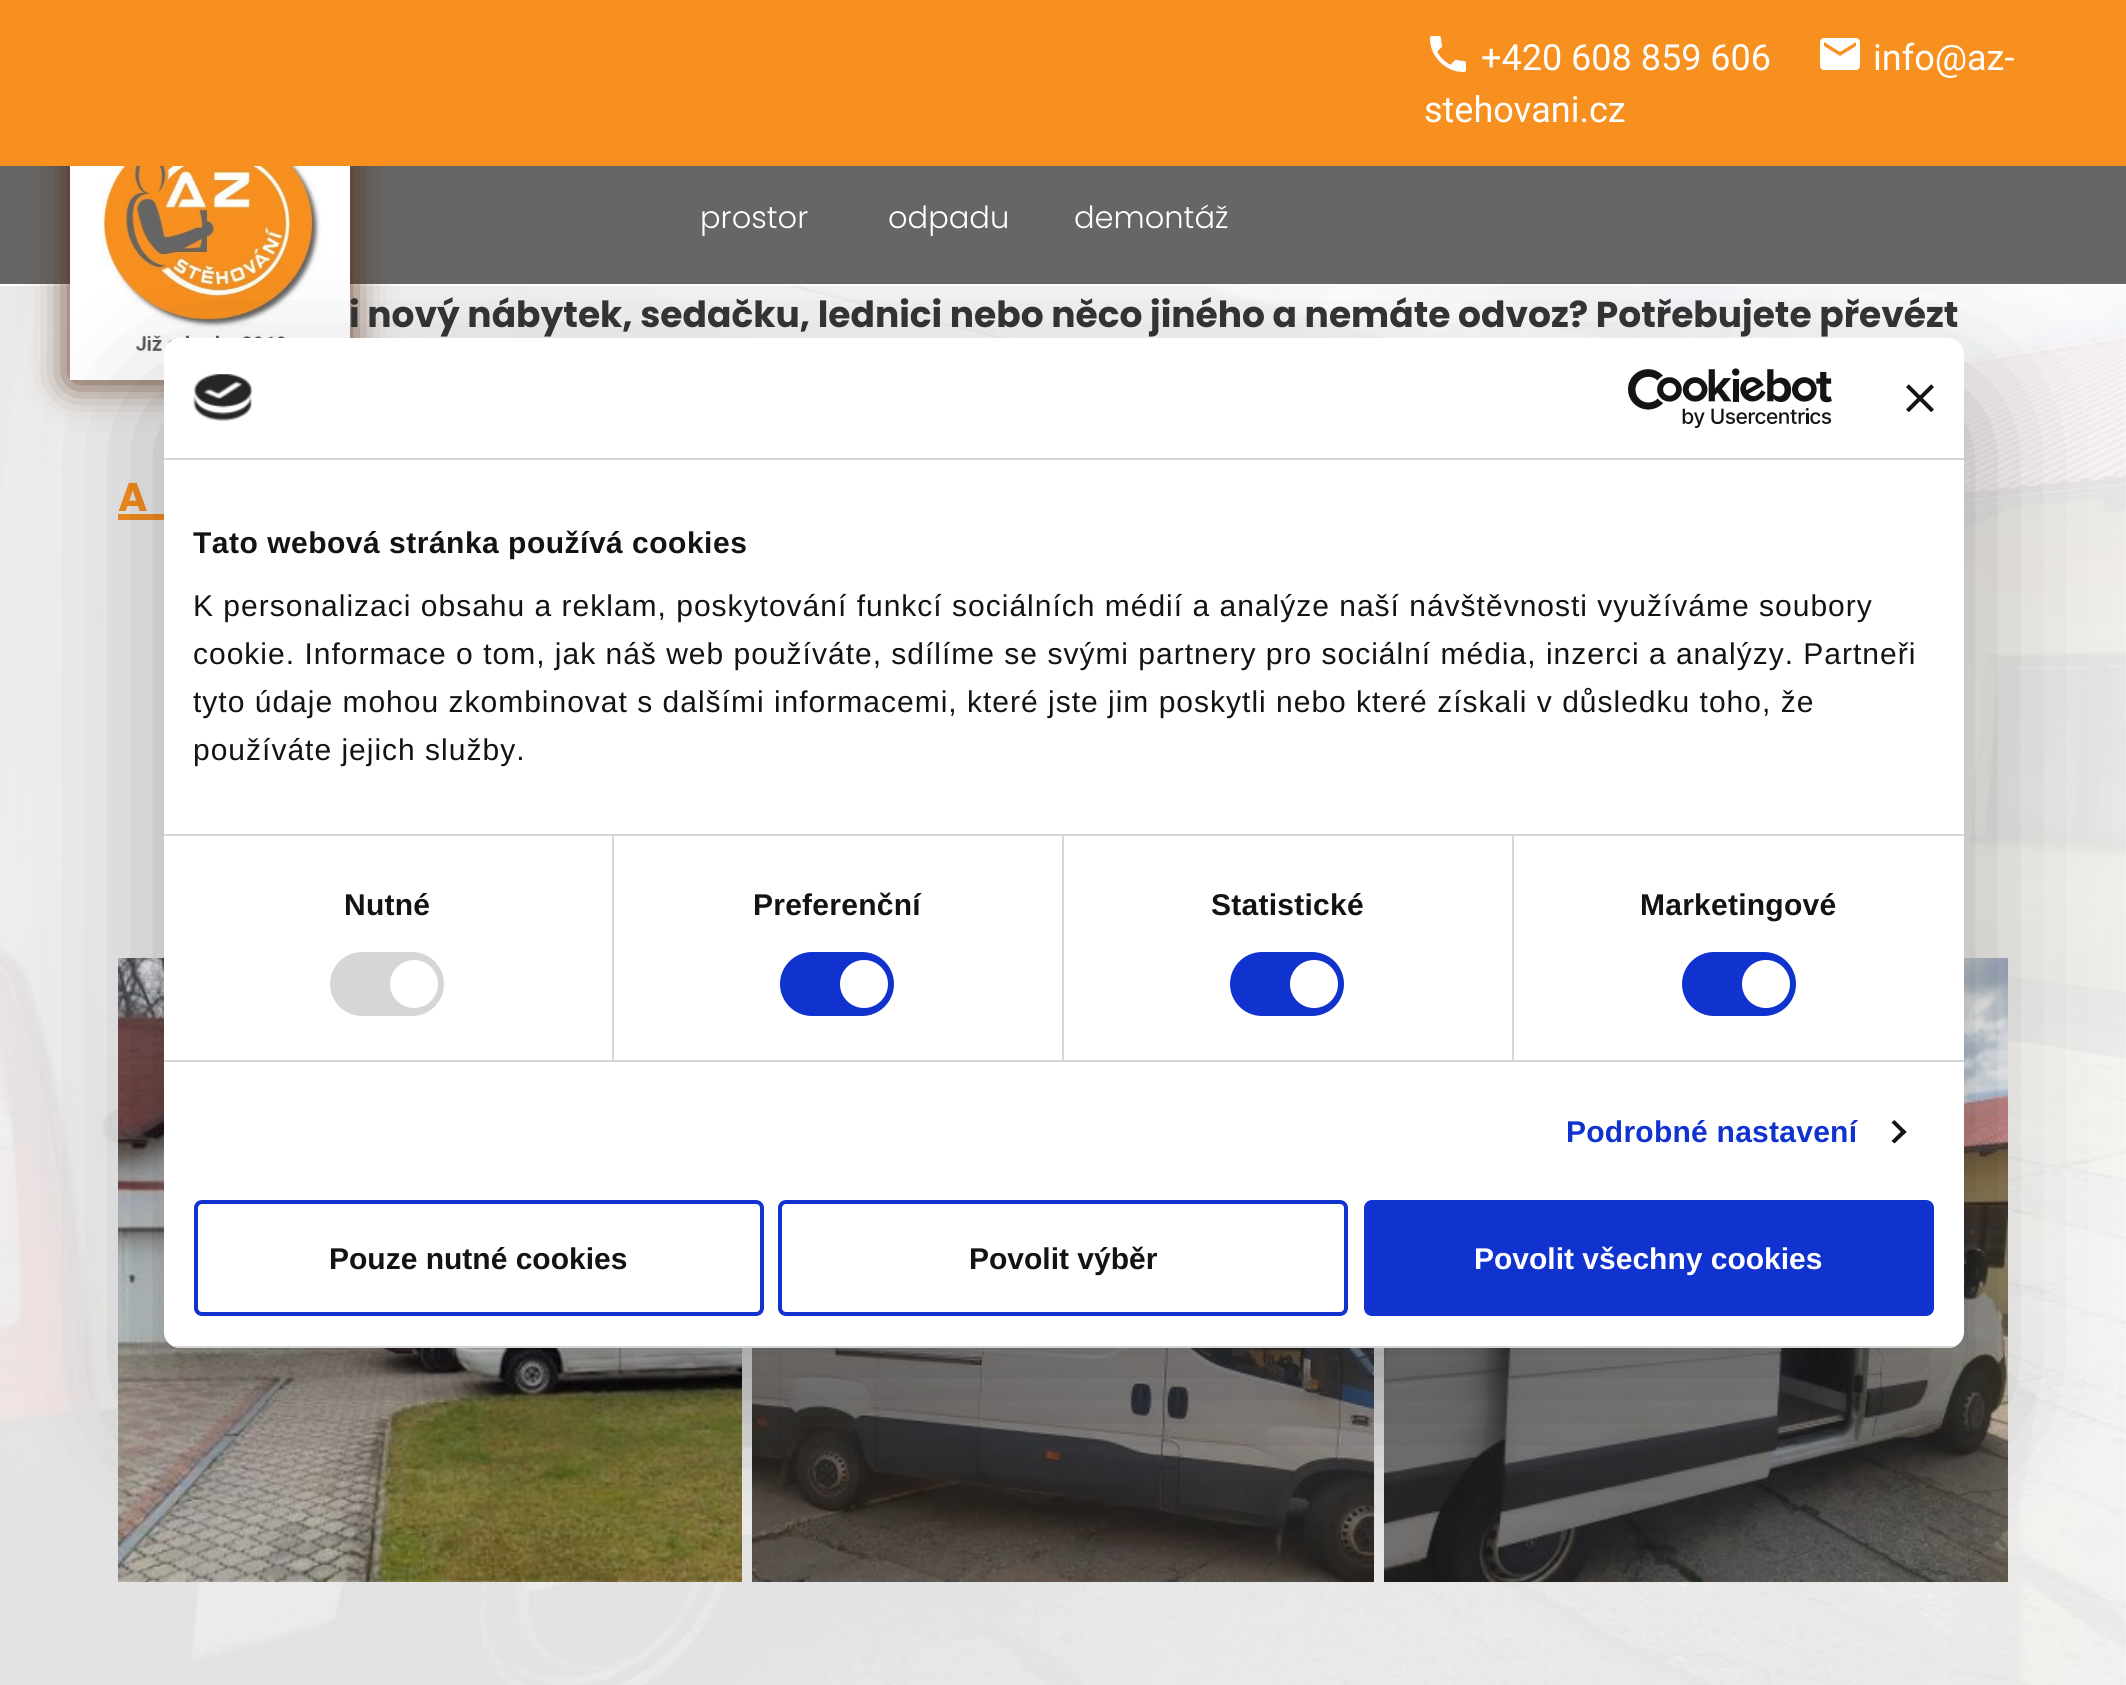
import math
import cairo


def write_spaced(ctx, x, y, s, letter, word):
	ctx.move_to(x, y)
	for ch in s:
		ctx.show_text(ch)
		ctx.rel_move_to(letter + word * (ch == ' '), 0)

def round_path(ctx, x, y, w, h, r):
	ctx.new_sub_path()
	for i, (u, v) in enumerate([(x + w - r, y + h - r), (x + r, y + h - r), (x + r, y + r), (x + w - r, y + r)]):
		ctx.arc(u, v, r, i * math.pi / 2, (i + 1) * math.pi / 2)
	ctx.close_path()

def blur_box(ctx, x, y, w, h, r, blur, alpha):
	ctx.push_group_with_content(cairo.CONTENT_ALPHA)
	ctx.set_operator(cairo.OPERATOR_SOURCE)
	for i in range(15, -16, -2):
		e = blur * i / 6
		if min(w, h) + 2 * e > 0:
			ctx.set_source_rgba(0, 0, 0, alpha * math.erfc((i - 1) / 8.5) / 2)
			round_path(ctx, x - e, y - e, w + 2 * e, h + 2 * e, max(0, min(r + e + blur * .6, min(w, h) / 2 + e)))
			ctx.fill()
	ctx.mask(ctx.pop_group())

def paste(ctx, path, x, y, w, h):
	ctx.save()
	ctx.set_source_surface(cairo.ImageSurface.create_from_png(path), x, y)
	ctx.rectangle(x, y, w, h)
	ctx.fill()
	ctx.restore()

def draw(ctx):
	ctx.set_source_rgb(1, 1, 1)
	ctx.paint()
	ctx.set_source_rgb(0.4, 0.4, 0.4)
	ctx.rectangle(0, 166, 2126, 118)
	ctx.fill()
	paste(ctx, 'media/4.png', 0, 286, 2126, 1399)
	ctx.set_source_rgb(0.322, 0.149, 0.043)
	blur_box(ctx, 70, 102, 280, 280, 0, 20, 0.9)
	ctx.set_source_rgb(0.969, 0.565, 0.122)
	ctx.rectangle(0, 0, 2126, 166)
	ctx.fill()
	paste(ctx, 'media/1.png', 1430, 36, 36, 36)
	ctx.select_font_face('Roboto')
	ctx.set_font_size(36)
	ctx.set_source_rgb(1, 1, 1)
	ctx.move_to(1481, 70)
	ctx.show_text('+420 608 859 606')
	paste(ctx, 'media/2.png', 1820, 38, 40, 32)
	ctx.move_to(1873, 70)
	ctx.show_text('info@az-')
	ctx.move_to(1424, 122)
	ctx.show_text('stehovani.cz')
	ctx.rectangle(70, 166, 280, 214)
	ctx.fill()
	paste(ctx, 'media/3.png', 101, 166, 220, 188)
	ctx.select_font_face('Poppins Light')
	ctx.set_font_size(30.5)
	for x, y, s in [
		(700, 228, 'prostor'),
		(888, 228, 'odpadu'),
		(1074, 228, 'demontáž'),
	]:
		ctx.move_to(x, y)
		ctx.show_text(s)
	ctx.select_font_face('Poppins', cairo.FONT_SLANT_NORMAL, cairo.FONT_WEIGHT_BOLD)
	ctx.set_font_size(36)
	ctx.set_source_rgb(0.204, 0.204, 0.204)
	ctx.move_to(349, 327)
	ctx.show_text('i nový nábytek, sedačku, lednici nebo něco jiného a nemáte odvoz? Potřebujete převézt')
	ctx.set_font_size(40)
	ctx.set_source_rgb(0.969, 0.565, 0.122)
	write_spaced(ctx, 118, 511, 'A', 4, 0)
	ctx.rectangle(118, 514, 46, 6)
	ctx.fill()
	paste(ctx, 'media/5.png', 118, 958, 624, 624)
	paste(ctx, 'media/6.png', 752, 1348, 622, 234)
	paste(ctx, 'media/7.png', 1384, 958, 624, 624)
	ctx.set_source_rgb(0, 0, 0)
	blur_box(ctx, 164, 402, 1800, 1010, 16, 68, 0.3)
	ctx.set_source_rgb(1, 1, 1)
	round_path(ctx, 164, 338, 1800, 1010, 16)
	ctx.fill()
	ctx.set_source_rgb(0.839, 0.839, 0.839)
	ctx.rectangle(164, 458, 1800, 2)
	ctx.fill()
	paste(ctx, 'media/8.png', 193, 374, 60, 47)
	paste(ctx, 'media/9.png', 1628, 368, 204, 60)
	paste(ctx, 'media/10.png', 1906, 384, 28, 28)
	ctx.rectangle(164, 834, 1800, 2)
	ctx.fill()
	ctx.select_font_face('Liberation Sans', cairo.FONT_SLANT_NORMAL, cairo.FONT_WEIGHT_BOLD)
	ctx.set_font_size(30)
	ctx.set_source_rgb(0.078, 0.078, 0.078)
	write_spaced(ctx, 193, 553, 'Tato webová stránka používá cookies', 0.5, 0)
	ctx.select_font_face('Liberation Sans')
	for x, y, s in [
		(193, 616, 'K personalizaci obsahu a reklam, poskytování funkcí sociálních médií a analýze naší návštěvnosti využíváme soubory'),
		(193, 664, 'cookie. Informace o tom, jak náš web používáte, sdílíme se svými partnery pro sociální média, inzerci a analýzy. Partneři'),
		(193, 712, 'tyto údaje mohou zkombinovat s dalšími informacemi, které jste jim poskytli nebo které získali v důsledku toho, že'),
		(193, 760, 'používáte jejich služby.'),
	]:
		write_spaced(ctx, x, y, s, 1, 0)
	ctx.set_source_rgb(0.839, 0.839, 0.839)
	ctx.rectangle(164, 1060, 1800, 2)
	ctx.fill()
	ctx.rectangle(612, 836, 2, 224)
	ctx.fill()
	ctx.select_font_face('Liberation Sans', cairo.FONT_SLANT_NORMAL, cairo.FONT_WEIGHT_BOLD)
	ctx.set_source_rgb(0.078, 0.078, 0.078)
	write_spaced(ctx, 344, 915, 'Nutné', 0.25, 0)
	ctx.set_source_rgb(0.839, 0.839, 0.839)
	round_path(ctx, 330, 952, 114, 64, 32)
	ctx.fill()
	ctx.set_source_rgb(1, 1, 1)
	ctx.arc(414, 984, 24, 0, 2 * math.pi)
	ctx.fill()
	ctx.set_source_rgb(0.839, 0.839, 0.839)
	ctx.rectangle(1062, 836, 2, 224)
	ctx.fill()
	ctx.set_source_rgb(0.078, 0.078, 0.078)
	write_spaced(ctx, 753, 915, 'Preferenční', 0.25, 0)
	ctx.set_source_rgb(0.063, 0.196, 0.812)
	round_path(ctx, 780, 952, 114, 64, 32)
	ctx.fill()
	ctx.set_source_rgb(1, 1, 1)
	ctx.arc(864, 984, 24, 0, 2 * math.pi)
	ctx.fill()
	ctx.set_source_rgb(0.839, 0.839, 0.839)
	ctx.rectangle(1512, 836, 2, 224)
	ctx.fill()
	ctx.set_source_rgb(0.078, 0.078, 0.078)
	write_spaced(ctx, 1211, 915, 'Statistické', 0.25, 0)
	ctx.set_source_rgb(0.063, 0.196, 0.812)
	round_path(ctx, 1230, 952, 114, 64, 32)
	ctx.fill()
	ctx.set_source_rgb(1, 1, 1)
	ctx.arc(1314, 984, 24, 0, 2 * math.pi)
	ctx.fill()
	ctx.set_source_rgb(0.078, 0.078, 0.078)
	write_spaced(ctx, 1640, 915, 'Marketingové', 0.25, 0)
	ctx.set_source_rgb(0.063, 0.196, 0.812)
	round_path(ctx, 1682, 952, 114, 64, 32)
	ctx.fill()
	ctx.set_source_rgb(1, 1, 1)
	ctx.arc(1766, 984, 24, 0, 2 * math.pi)
	ctx.fill()
	ctx.set_source_rgb(0.063, 0.196, 0.812)
	write_spaced(ctx, 1566, 1142, 'Podrobné nastavení', 0.25, 0)
	ctx.set_source_rgb(0.078, 0.078, 0.078)
	ctx.new_path()
	ctx.move_to(1894.5, 1120)
	ctx.line_to(1906.5, 1132)
	ctx.line_to(1903.5, 1134.5)
	ctx.line_to(1891.5, 1122.5)
	ctx.close_path()
	ctx.fill()
	ctx.new_path()
	ctx.move_to(1903.5, 1129)
	ctx.line_to(1906.5, 1132)
	ctx.line_to(1894.5, 1143.5)
	ctx.line_to(1891.5, 1141)
	ctx.close_path()
	ctx.fill()
	ctx.save()
	round_path(ctx, 164, 338, 1800, 1010, 16)
	ctx.clip()
	ctx.set_source_rgb(0.839, 0.839, 0.839)
	ctx.rectangle(164, 1346, 1800, 2)
	ctx.fill()
	ctx.restore()
	round_path(ctx, 196, 1202, 566, 112, 6)
	ctx.set_source_rgb(0.063, 0.196, 0.812)
	ctx.set_line_width(4)
	ctx.stroke()
	ctx.set_source_rgb(0.078, 0.078, 0.078)
	ctx.move_to(329, 1269)
	ctx.show_text('Pouze nutné cookies')
	round_path(ctx, 780, 1202, 566, 112, 6)
	ctx.set_source_rgb(0.063, 0.196, 0.812)
	ctx.stroke()
	ctx.set_source_rgb(0.078, 0.078, 0.078)
	ctx.move_to(969, 1269)
	ctx.show_text('Povolit výběr')
	ctx.set_source_rgb(0.063, 0.196, 0.812)
	round_path(ctx, 1366, 1202, 566, 112, 6)
	ctx.fill_preserve()
	ctx.stroke()
	ctx.set_source_rgb(1, 1, 1)
	ctx.move_to(1474, 1269)
	ctx.show_text('Povolit všechny cookies')


surface = cairo.ImageSurface(cairo.FORMAT_RGB24, 2126, 1685)
ctx = cairo.Context(surface)
options = cairo.FontOptions()
options.set_hint_metrics(cairo.HINT_METRICS_OFF)
options.set_hint_style(cairo.HINT_STYLE_NONE)
ctx.set_font_options(options)
ctx.set_miter_limit(4)
draw(ctx)
surface.write_to_png('image.png')
